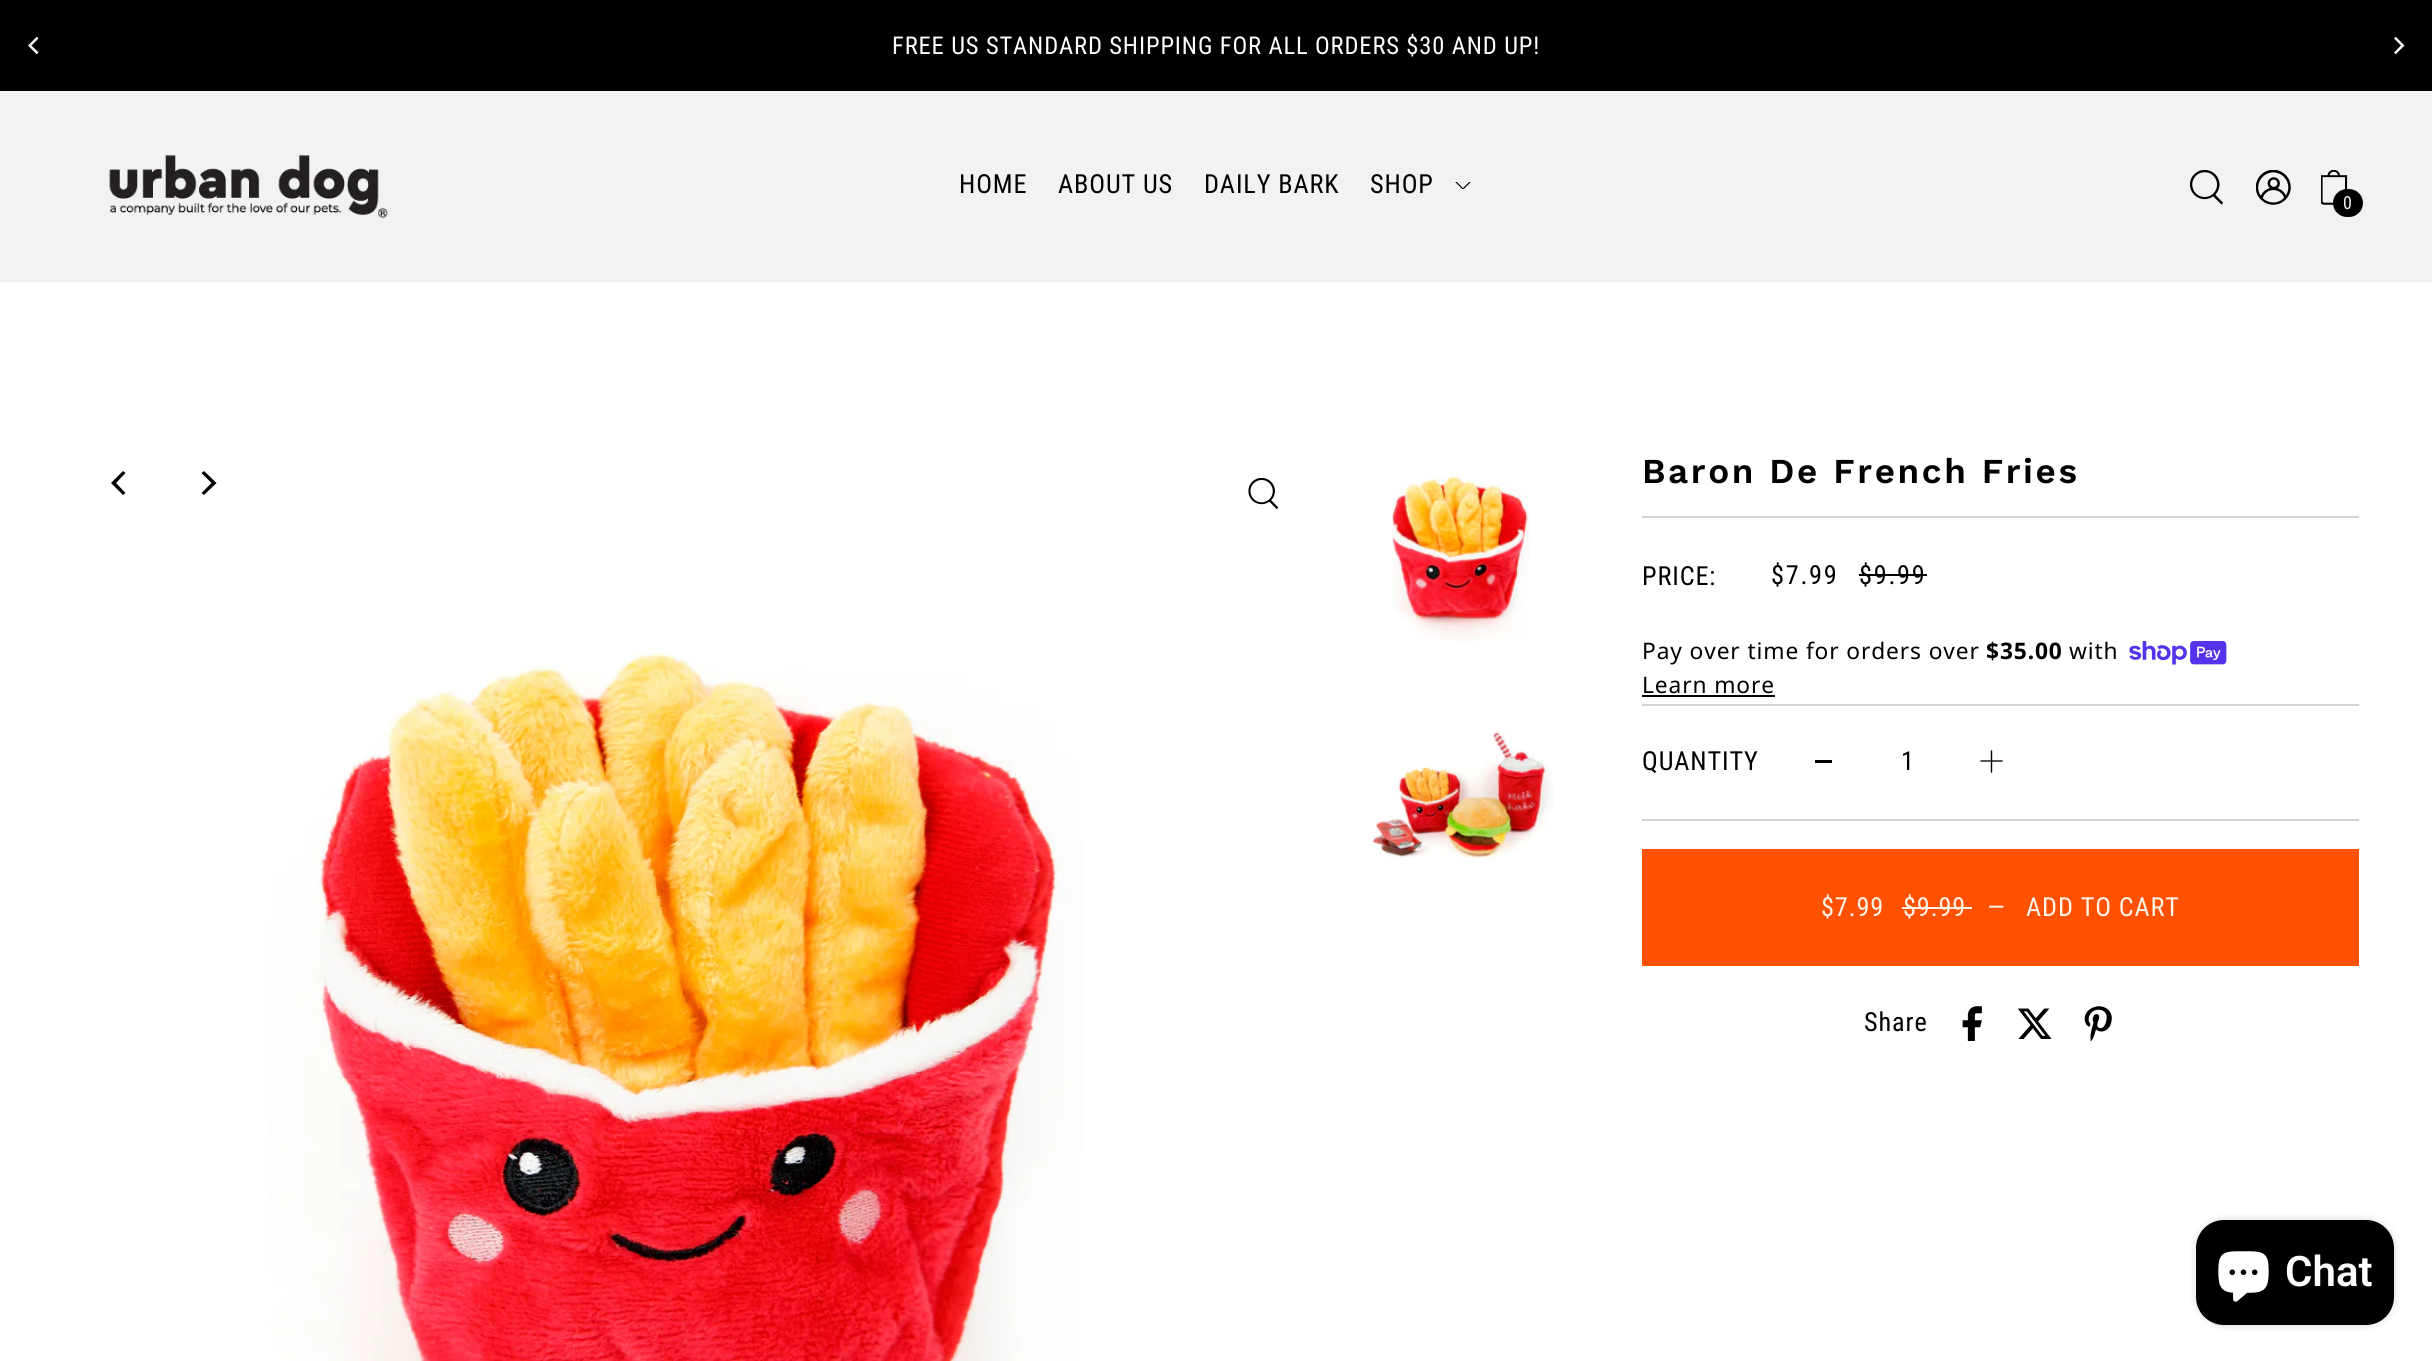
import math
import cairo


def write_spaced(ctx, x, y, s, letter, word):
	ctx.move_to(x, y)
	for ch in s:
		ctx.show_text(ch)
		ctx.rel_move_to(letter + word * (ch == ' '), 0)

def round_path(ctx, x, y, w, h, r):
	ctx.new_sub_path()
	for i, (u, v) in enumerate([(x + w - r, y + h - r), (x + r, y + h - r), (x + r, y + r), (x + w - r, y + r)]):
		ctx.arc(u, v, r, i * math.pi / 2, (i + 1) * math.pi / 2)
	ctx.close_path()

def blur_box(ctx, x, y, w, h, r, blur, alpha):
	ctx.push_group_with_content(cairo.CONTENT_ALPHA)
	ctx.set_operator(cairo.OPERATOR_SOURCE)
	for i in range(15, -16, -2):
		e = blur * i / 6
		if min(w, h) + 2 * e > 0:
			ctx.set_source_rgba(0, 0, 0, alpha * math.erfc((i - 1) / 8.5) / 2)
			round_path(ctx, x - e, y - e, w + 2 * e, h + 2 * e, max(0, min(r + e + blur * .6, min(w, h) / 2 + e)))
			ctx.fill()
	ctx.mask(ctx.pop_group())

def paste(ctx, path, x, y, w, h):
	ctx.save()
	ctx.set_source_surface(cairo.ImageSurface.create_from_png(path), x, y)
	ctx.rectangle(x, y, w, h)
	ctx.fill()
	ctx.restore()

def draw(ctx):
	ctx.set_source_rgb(1, 1, 1)
	ctx.paint()
	ctx.set_source_rgb(0, 0, 0)
	ctx.rectangle(0, 0, 2432, 91)
	ctx.fill()
	paste(ctx, 'media/1.png', 28, 36, 11, 19)
	ctx.select_font_face('Roboto Condensed')
	ctx.set_font_size(24.5)
	ctx.set_source_rgb(1, 1, 1)
	write_spaced(ctx, 892, 54, 'FREE US STANDARD SHIPPING FOR ALL ORDERS $30 AND UP!', 0.88, 0)
	paste(ctx, 'media/2.png', 2394, 36, 11, 19)
	ctx.set_source_rgb(0.949, 0.949, 0.949)
	ctx.rectangle(0, 91, 2432, 191)
	ctx.fill()
	paste(ctx, 'media/3.png', 109, 155, 279, 63)
	ctx.set_font_size(26.25)
	ctx.set_source_rgb(0, 0, 0)
	for x, y, s in [
		(959, 193, 'HOME'),
		(1058, 193, 'ABOUT US'),
		(1204, 193, 'DAILY BARK'),
		(1370, 193, 'SHOP'),
	]:
		write_spaced(ctx, x, y, s, 0.88, 0)
	ctx.save()
	ctx.rectangle(1453, 182, 21, 7)
	ctx.clip()
	ctx.new_path()
	ctx.move_to(1456, 182)
	ctx.line_to(1463, 189)
	ctx.line_to(1470, 182)
	ctx.set_line_width(1.2)
	ctx.set_line_cap(cairo.LINE_CAP_ROUND)
	ctx.set_line_join(cairo.LINE_JOIN_ROUND)
	ctx.stroke()
	ctx.restore()
	paste(ctx, 'media/4.png', 2189, 170, 35, 35)
	paste(ctx, 'media/5.png', 2256, 170, 35, 35)
	paste(ctx, 'media/6.png', 2321, 170, 27, 35)
	round_path(ctx, 2333, 189, 30, 28, 14)
	ctx.fill()
	ctx.set_font_size(18)
	ctx.set_source_rgb(0.949, 0.949, 0.949)
	write_spaced(ctx, 2343, 209, '0', 0.88, 0)
	ctx.set_source_rgb(0, 0, 0)
	ctx.new_path()
	ctx.move_to(111, 483)
	ctx.line_to(123, 495)
	ctx.line_to(125.5, 493)
	ctx.line_to(116, 483)
	ctx.line_to(125.5, 473)
	ctx.line_to(123, 471)
	ctx.close_path()
	ctx.fill()
	ctx.new_path()
	ctx.move_to(216.5, 483)
	ctx.line_to(204, 471)
	ctx.line_to(201.5, 473)
	ctx.line_to(211.5, 483)
	ctx.line_to(201.5, 493)
	ctx.line_to(204, 495)
	ctx.close_path()
	ctx.fill()
	paste(ctx, 'media/7.png', 1248, 478, 31, 31)
	paste(ctx, 'media/8.png', 267, 652, 816, 709)
	paste(ctx, 'media/9.png', 1391, 474, 139, 168)
	paste(ctx, 'media/10.png', 1372, 731, 182, 128)
	ctx.select_font_face('Work Sans SemiBold')
	ctx.set_font_size(35)
	write_spaced(ctx, 1642, 483, 'Baron De French Fries', 2.6, 0)
	ctx.set_source_rgb(0.831, 0.831, 0.831)
	ctx.rectangle(1642, 516, 717, 2)
	ctx.fill()
	ctx.select_font_face('Roboto Condensed')
	ctx.set_font_size(26.25)
	ctx.set_source_rgb(0, 0, 0)
	write_spaced(ctx, 1642, 585, 'PRICE:', 0.88, 0)
	write_spaced(ctx, 1771, 584, '$7.99', 1.75, 0)
	write_spaced(ctx, 1859, 584, '$9.99', 1.75, 0)
	ctx.rectangle(1859, 574, 68, 2)
	ctx.fill()
	ctx.select_font_face('Noto Sans')
	ctx.set_font_size(22.75)
	write_spaced(ctx, 1642, 659, 'Pay over time for orders over', 0.88, 0)
	ctx.select_font_face('Noto Sans', cairo.FONT_SLANT_NORMAL, cairo.FONT_WEIGHT_BOLD)
	write_spaced(ctx, 1986, 659, '$35.00', 0.88, 0)
	ctx.select_font_face('Noto Sans')
	write_spaced(ctx, 2069, 659, 'with', 0.88, 0)
	paste(ctx, 'media/11.png', 2129, 641, 98, 24)
	write_spaced(ctx, 1642, 693, 'Learn more', 0.88, 0)
	ctx.rectangle(1642, 695, 133, 2)
	ctx.fill()
	ctx.set_source_rgb(0.831, 0.831, 0.831)
	ctx.rectangle(1642, 704, 717, 2)
	ctx.rectangle(1642, 819, 717, 2)
	ctx.fill()
	ctx.select_font_face('Roboto Condensed')
	ctx.set_font_size(26.25)
	ctx.set_source_rgb(0, 0, 0)
	write_spaced(ctx, 1642, 770, 'QUANTITY', 0.88, 0)
	ctx.rectangle(1815, 760, 17, 3)
	ctx.fill()
	write_spaced(ctx, 1901, 770, '1', 0.88, 0)
	ctx.new_path()
	ctx.move_to(1991.5, 751)
	ctx.line_to(1991.5, 772)
	ctx.move_to(1981, 761)
	ctx.line_to(2002, 761)
	ctx.set_line_width(1.4)
	ctx.set_line_cap(cairo.LINE_CAP_ROUND)
	ctx.stroke()
	ctx.set_source_rgb(1, 0.318, 0)
	ctx.rectangle(1642, 849, 717, 117)
	ctx.fill()
	ctx.set_source_rgb(0.98, 0.957, 0.91)
	write_spaced(ctx, 1821, 916, '$7.99', 0.88, 0)
	write_spaced(ctx, 1903, 916, '$9.99', 0.88, 0)
	ctx.rectangle(1902, 907, 70, 2)
	ctx.fill()
	write_spaced(ctx, 1987, 916, '—', 0.88, 0)
	write_spaced(ctx, 2026, 916, 'ADD TO CART', 0.88, 0)
	ctx.set_source_rgb(0, 0, 0)
	write_spaced(ctx, 1864, 1031, 'Share', 0.88, 0)
	paste(ctx, 'media/12.png', 1962, 1006, 20, 35)
	paste(ctx, 'media/13.png', 2018, 1008, 34, 31)
	paste(ctx, 'media/14.png', 2084, 1006, 28, 35)
	ctx.set_source_rgb(0, 0, 0)
	blur_box(ctx, 2196, 1220, 198, 105, 28, 4.5, 0.15)
	ctx.set_source_rgb(0, 0, 0)
	round_path(ctx, 2196, 1220, 198, 105, 28)
	ctx.fill()
	paste(ctx, 'media/15.png', 2218, 1251, 51, 51)
	ctx.select_font_face('Roboto SemiBold')
	ctx.set_font_size(42)
	ctx.set_source_rgb(1, 1, 1)
	ctx.move_to(2285, 1286)
	ctx.show_text('Chat')


surface = cairo.ImageSurface(cairo.FORMAT_RGB24, 2432, 1361)
ctx = cairo.Context(surface)
options = cairo.FontOptions()
options.set_hint_metrics(cairo.HINT_METRICS_OFF)
options.set_hint_style(cairo.HINT_STYLE_NONE)
ctx.set_font_options(options)
ctx.set_miter_limit(4)
draw(ctx)
surface.write_to_png('image.png')
